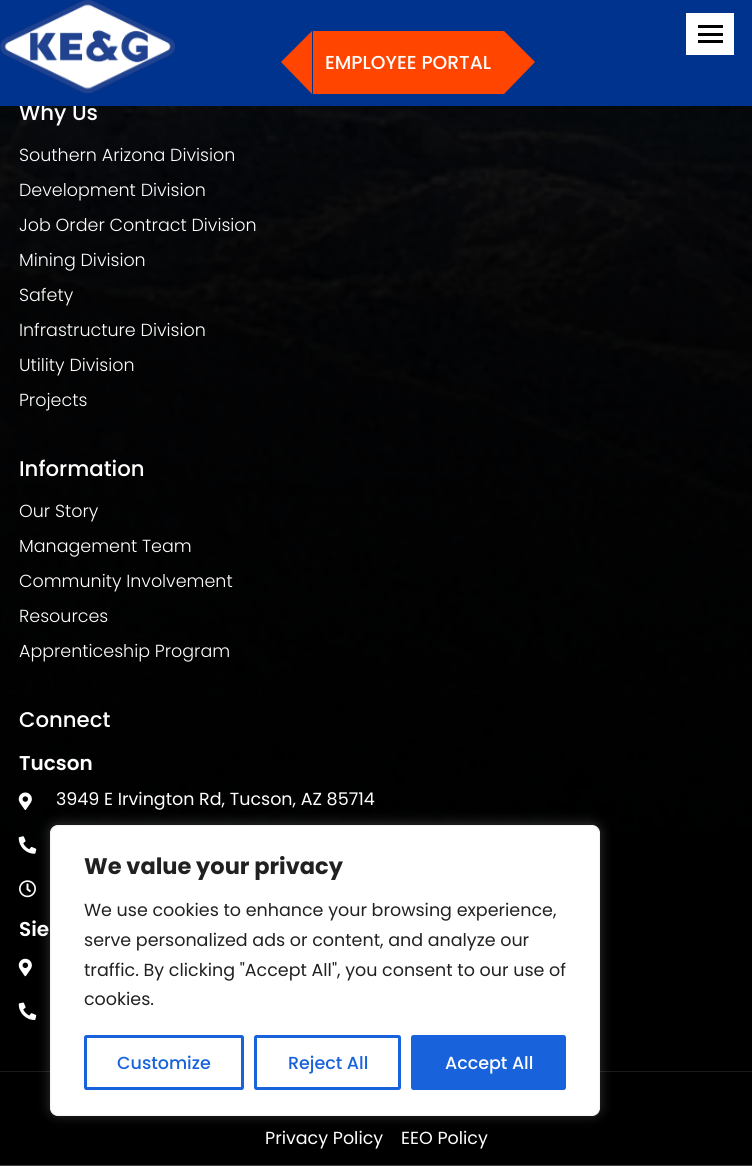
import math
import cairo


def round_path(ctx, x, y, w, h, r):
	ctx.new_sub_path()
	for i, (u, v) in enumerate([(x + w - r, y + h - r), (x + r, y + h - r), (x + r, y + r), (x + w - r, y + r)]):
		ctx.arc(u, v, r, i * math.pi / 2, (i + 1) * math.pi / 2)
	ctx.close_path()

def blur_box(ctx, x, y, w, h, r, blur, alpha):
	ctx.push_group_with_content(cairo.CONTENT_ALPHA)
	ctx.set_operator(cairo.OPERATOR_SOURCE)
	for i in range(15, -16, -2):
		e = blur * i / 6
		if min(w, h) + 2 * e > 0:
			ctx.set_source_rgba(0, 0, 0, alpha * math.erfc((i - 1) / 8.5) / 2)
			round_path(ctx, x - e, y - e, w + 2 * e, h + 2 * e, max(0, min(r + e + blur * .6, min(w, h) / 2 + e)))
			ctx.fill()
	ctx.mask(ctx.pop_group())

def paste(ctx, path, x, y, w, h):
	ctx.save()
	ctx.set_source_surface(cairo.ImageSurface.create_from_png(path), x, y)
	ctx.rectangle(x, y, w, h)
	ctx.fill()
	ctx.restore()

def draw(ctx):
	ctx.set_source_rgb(1, 1, 1)
	ctx.paint()
	paste(ctx, 'media/2.png', 0, 106, 752, 1060)
	ctx.select_font_face('Poppins Medium')
	ctx.set_font_size(21.25)
	ctx.set_source_rgb(1, 1, 1)
	ctx.move_to(19, 120)
	ctx.show_text('Why Us')
	ctx.set_source_rgb(0, 0.2, 0.553)
	ctx.rectangle(0, 0, 752, 106)
	ctx.fill()
	paste(ctx, 'media/1.png', 0, 0, 175, 94)
	ctx.set_source_rgb(1, 1, 1)
	ctx.rectangle(686, 13, 48, 42)
	ctx.fill()
	ctx.set_source_rgb(0, 0, 0)
	ctx.rectangle(698, 25, 25, 3)
	ctx.rectangle(698, 33, 25, 3)
	ctx.rectangle(698, 40, 25, 3)
	ctx.fill()
	ctx.set_source_rgb(1, 0.271, 0)
	ctx.rectangle(313, 31, 191, 63)
	ctx.fill()
	ctx.new_path()
	ctx.move_to(312, 31)
	ctx.line_to(312, 94)
	ctx.line_to(281, 62)
	ctx.close_path()
	ctx.fill()
	ctx.set_font_size(18.75)
	ctx.set_source_rgb(1, 1, 1)
	ctx.move_to(325, 69)
	ctx.show_text('EMPLOYEE PORTAL')
	ctx.set_source_rgb(1, 0.271, 0)
	ctx.new_path()
	ctx.move_to(504, 94)
	ctx.line_to(504, 31)
	ctx.line_to(535, 62)
	ctx.close_path()
	ctx.fill()
	ctx.select_font_face('Poppins Light')
	ctx.set_font_size(17.5)
	ctx.set_source_rgb(1, 1, 1)
	for x, y, s in [
		(19, 161, 'Southern Arizona Division'),
		(19, 196, 'Development Division'),
		(19, 231, 'Job Order Contract Division'),
		(19, 266, 'Mining Division'),
		(19, 301, 'Safety'),
		(19, 336, 'Infrastructure Division'),
		(19, 371, 'Utility Division'),
		(19, 406, 'Projects'),
	]:
		ctx.move_to(x, y)
		ctx.show_text(s)
	ctx.select_font_face('Poppins Medium')
	ctx.set_font_size(21.25)
	ctx.move_to(19, 476)
	ctx.show_text('Information')
	ctx.select_font_face('Poppins Light')
	ctx.set_font_size(17.5)
	for x, y, s in [
		(19, 517, 'Our Story'),
		(19, 552, 'Management Team'),
		(19, 587, 'Community Involvement'),
		(19, 622, 'Resources'),
		(19, 657, 'Apprenticeship Program'),
	]:
		ctx.move_to(x, y)
		ctx.show_text(s)
	ctx.select_font_face('Poppins Medium')
	ctx.set_font_size(21.25)
	ctx.move_to(19, 727)
	ctx.show_text('Connect')
	ctx.select_font_face('Poppins SemiBold')
	ctx.set_font_size(20)
	ctx.move_to(19, 770)
	ctx.show_text('Tucson')
	paste(ctx, 'media/3.png', 18, 792, 14, 18)
	ctx.select_font_face('Poppins')
	ctx.set_font_size(17.5)
	ctx.move_to(56, 805)
	ctx.show_text('3949 E Irvington Rd, Tucson, AZ 85714')
	paste(ctx, 'media/4.png', 18, 836, 19, 18)
	paste(ctx, 'media/5.png', 19, 880, 17, 18)
	ctx.select_font_face('Poppins SemiBold')
	ctx.set_font_size(20)
	ctx.move_to(19, 936)
	ctx.show_text('Sie')
	paste(ctx, 'media/6.png', 18, 958, 14, 19)
	paste(ctx, 'media/7.png', 18, 1002, 19, 18)
	ctx.set_source_rgb(0.102, 0.102, 0.102)
	ctx.rectangle(0, 1071, 752, 1)
	ctx.fill()
	ctx.select_font_face('Poppins')
	ctx.set_font_size(17.5)
	ctx.set_source_rgb(1, 1, 1)
	ctx.move_to(265, 1144)
	ctx.show_text('Privacy Policy')
	ctx.move_to(401, 1144)
	ctx.show_text('EEO Policy')
	ctx.set_source_rgb(0.675, 0.671, 0.671)
	blur_box(ctx, 50, 824, 550, 291, 8, 6, 0.3)
	ctx.set_source_rgb(1, 1, 1)
	round_path(ctx, 50.5, 825.5, 549, 290, 7.5)
	ctx.fill_preserve()
	ctx.set_source_rgb(0.957, 0.957, 0.957)
	ctx.set_line_width(1)
	ctx.stroke()
	ctx.select_font_face('Poppins', cairo.FONT_SLANT_NORMAL, cairo.FONT_WEIGHT_BOLD)
	ctx.set_font_size(22.5)
	ctx.set_source_rgb(0.129, 0.129, 0.129)
	ctx.move_to(84, 874)
	ctx.show_text('We value your privacy')
	ctx.select_font_face('Poppins')
	ctx.set_font_size(17.5)
	for x, y, s in [
		(84, 916, 'We use cookies to enhance your browsing experience,'),
		(84, 946, 'serve personalized ads or content, and analyze our'),
		(84, 976, 'traffic. By clicking "Accept All", you consent to our use of'),
		(84, 1005, 'cookies.'),
	]:
		ctx.move_to(x, y)
		ctx.show_text(s)
	round_path(ctx, 85.5, 1036.5, 157, 52, 1)
	ctx.set_source_rgb(0.094, 0.388, 0.863)
	ctx.set_line_width(3)
	ctx.stroke()
	ctx.select_font_face('Poppins Medium')
	ctx.move_to(117, 1069)
	ctx.show_text('Customize')
	round_path(ctx, 255.5, 1036.5, 144, 52, 1)
	ctx.stroke()
	ctx.move_to(288, 1069)
	ctx.show_text('Reject All')
	round_path(ctx, 412.5, 1036.5, 152, 52, 1)
	ctx.fill_preserve()
	ctx.stroke()
	ctx.set_source_rgb(1, 1, 1)
	ctx.move_to(445, 1069)
	ctx.show_text('Accept All')


surface = cairo.ImageSurface(cairo.FORMAT_RGB24, 752, 1166)
ctx = cairo.Context(surface)
options = cairo.FontOptions()
options.set_hint_metrics(cairo.HINT_METRICS_OFF)
options.set_hint_style(cairo.HINT_STYLE_NONE)
ctx.set_font_options(options)
ctx.set_miter_limit(4)
draw(ctx)
surface.write_to_png('image.png')
